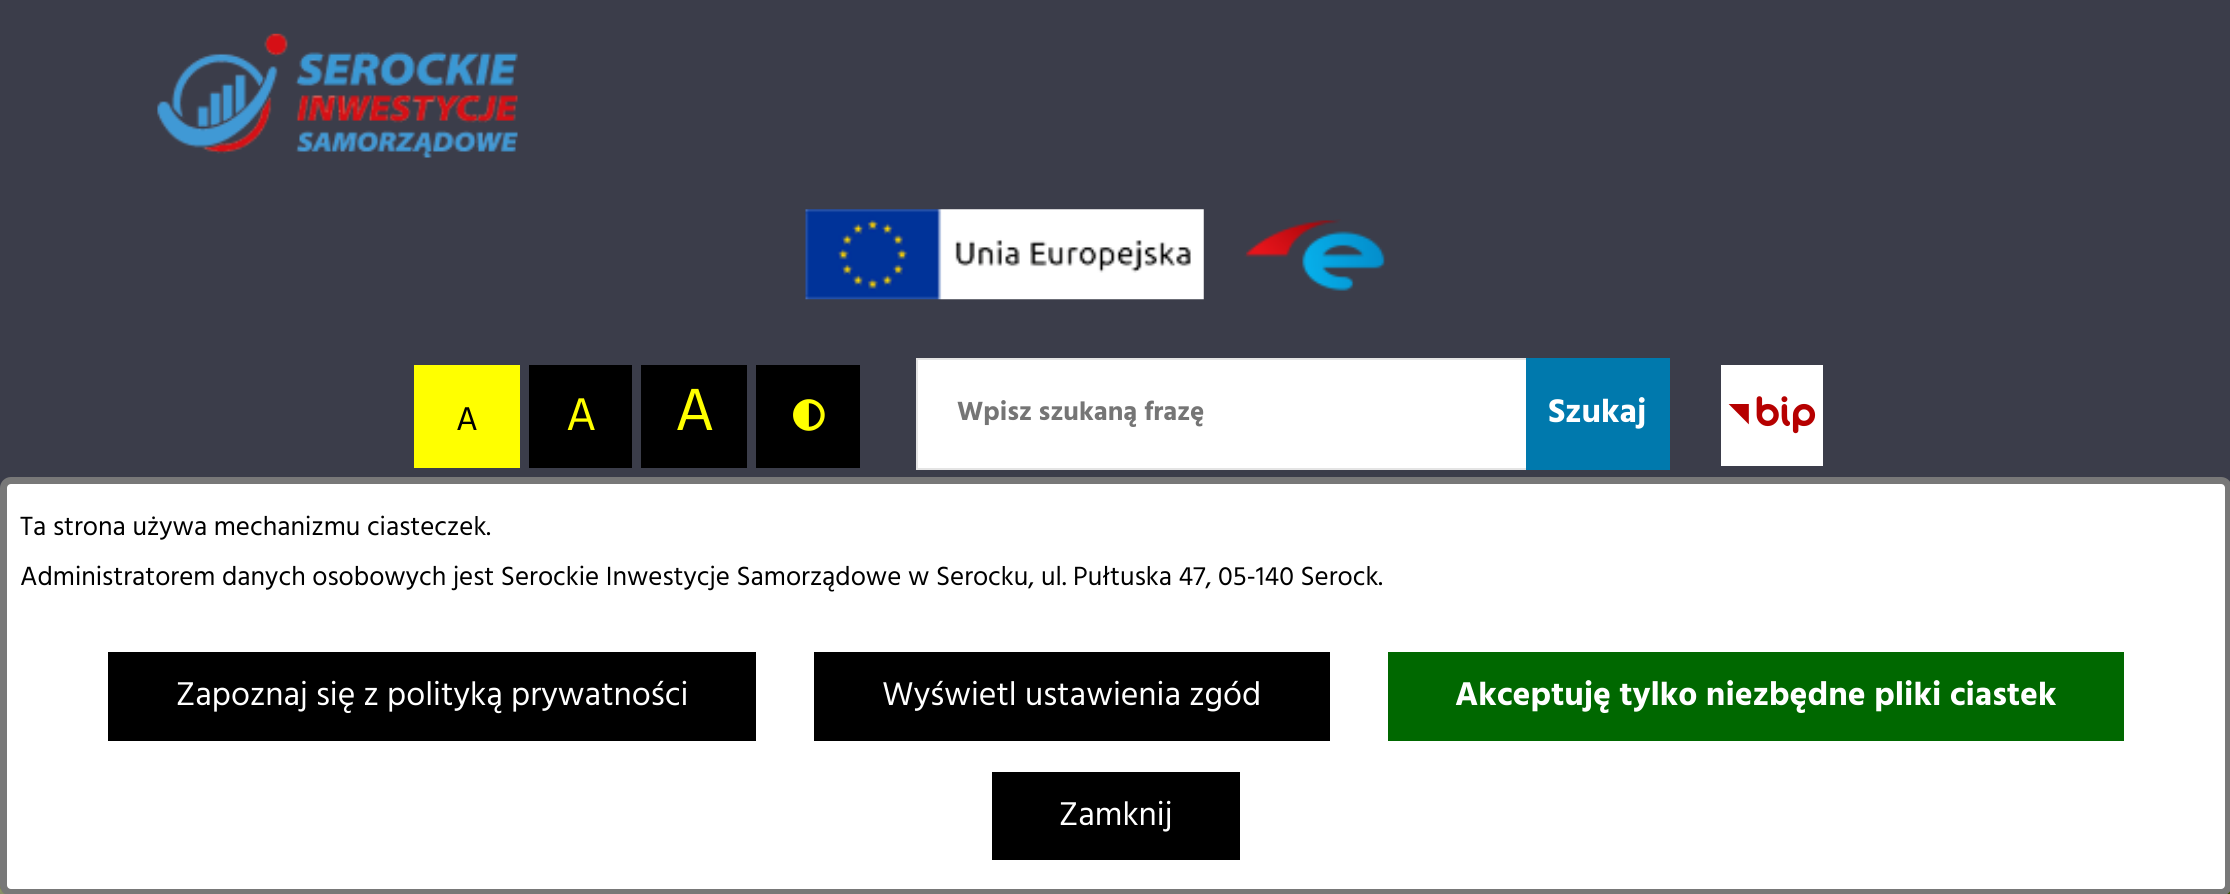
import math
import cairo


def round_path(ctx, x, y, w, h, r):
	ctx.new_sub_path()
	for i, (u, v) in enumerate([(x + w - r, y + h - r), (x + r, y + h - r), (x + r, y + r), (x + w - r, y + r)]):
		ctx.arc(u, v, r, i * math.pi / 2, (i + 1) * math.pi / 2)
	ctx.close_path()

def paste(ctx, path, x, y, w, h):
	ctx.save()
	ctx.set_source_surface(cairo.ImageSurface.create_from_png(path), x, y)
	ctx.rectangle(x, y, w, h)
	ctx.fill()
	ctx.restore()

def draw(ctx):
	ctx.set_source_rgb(1, 1, 1)
	ctx.paint()
	ctx.set_source_rgb(0.231, 0.239, 0.29)
	ctx.rectangle(0, 0, 2230, 488)
	ctx.fill()
	paste(ctx, 'media/1.png', 157, 33, 361, 125)
	paste(ctx, 'media/2.png', 805, 209, 399, 91)
	paste(ctx, 'media/3.png', 1244, 219, 141, 72)
	ctx.set_source_rgb(1, 1, 0)
	ctx.rectangle(414, 365, 106, 103)
	ctx.fill()
	ctx.select_font_face('Hind')
	ctx.set_font_size(33.75)
	ctx.set_source_rgb(0, 0, 0)
	ctx.move_to(456, 430)
	ctx.show_text('A')
	ctx.rectangle(529, 365, 103, 103)
	ctx.fill()
	ctx.set_font_size(47)
	ctx.set_source_rgb(1, 1, 0)
	ctx.move_to(566, 430)
	ctx.show_text('A')
	ctx.set_source_rgb(0, 0, 0)
	ctx.rectangle(641, 365, 106, 103)
	ctx.fill()
	ctx.set_font_size(61)
	ctx.set_source_rgb(1, 1, 0)
	ctx.move_to(675, 430)
	ctx.show_text('A')
	ctx.set_source_rgb(0, 0, 0)
	ctx.rectangle(756, 365, 104, 103)
	ctx.fill()
	paste(ctx, 'media/4.png', 793, 399, 32, 32)
	ctx.set_source_rgb(1, 1, 1)
	ctx.rectangle(918, 360, 608, 108)
	ctx.fill()
	ctx.set_source_rgb(0.894, 0.894, 0.894)
	ctx.rectangle(916, 358, 610, 2)
	ctx.rectangle(916, 468, 610, 2)
	ctx.rectangle(916, 358, 2, 112)
	ctx.fill()
	ctx.select_font_face('Hind', cairo.FONT_SLANT_NORMAL, cairo.FONT_WEIGHT_BOLD)
	ctx.set_font_size(27)
	ctx.set_source_rgb(0.459, 0.459, 0.459)
	ctx.move_to(957, 420)
	ctx.show_text('Wpisz szukaną frazę')
	ctx.set_source_rgb(0, 0.475, 0.678)
	ctx.rectangle(1526, 358, 144, 112)
	ctx.fill()
	ctx.set_font_size(33.75)
	ctx.set_source_rgb(1, 1, 1)
	ctx.move_to(1548, 422)
	ctx.show_text('Szukaj')
	ctx.rectangle(1721, 365, 102, 101)
	ctx.fill()
	paste(ctx, 'media/5.png', 1728, 396, 88, 38)
	paste(ctx, 'media/6.png', 0, 885, 2230, 9)
	round_path(ctx, 3.5, 480.5, 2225, 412, 7.5)
	ctx.fill_preserve()
	ctx.set_source_rgb(0.471, 0.471, 0.471)
	ctx.set_line_width(7)
	ctx.stroke()
	ctx.select_font_face('Hind')
	ctx.set_font_size(27)
	ctx.set_source_rgb(0, 0, 0)
	ctx.move_to(20, 535)
	ctx.show_text('Ta strona używa mechanizmu ciasteczek.')
	ctx.move_to(20, 585)
	ctx.show_text('Administratorem danych osobowych jest Serockie Inwestycje Samorządowe w Serocku, ul. Pułtuska 47, 05-140 Serock.')
	ctx.rectangle(108, 652, 648, 89)
	ctx.fill()
	ctx.set_font_size(33.75)
	ctx.set_source_rgb(1, 1, 1)
	ctx.move_to(176, 705)
	ctx.show_text('Zapoznaj się z polityką prywatności')
	ctx.set_source_rgb(0, 0, 0)
	ctx.rectangle(814, 652, 516, 89)
	ctx.fill()
	ctx.set_source_rgb(1, 1, 1)
	ctx.move_to(882, 705)
	ctx.show_text('Wyświetl ustawienia zgód')
	ctx.set_source_rgb(0, 0.408, 0)
	ctx.rectangle(1388, 652, 736, 89)
	ctx.fill()
	ctx.select_font_face('Hind', cairo.FONT_SLANT_NORMAL, cairo.FONT_WEIGHT_BOLD)
	ctx.set_source_rgb(1, 1, 1)
	ctx.move_to(1455, 705)
	ctx.show_text('Akceptuję tylko niezbędne pliki ciastek')
	ctx.set_source_rgb(0, 0, 0)
	ctx.rectangle(992, 772, 248, 88)
	ctx.fill()
	ctx.select_font_face('Hind')
	ctx.set_source_rgb(1, 1, 1)
	ctx.move_to(1059, 825)
	ctx.show_text('Zamknij')


surface = cairo.ImageSurface(cairo.FORMAT_RGB24, 2230, 894)
ctx = cairo.Context(surface)
options = cairo.FontOptions()
options.set_hint_metrics(cairo.HINT_METRICS_OFF)
options.set_hint_style(cairo.HINT_STYLE_NONE)
ctx.set_font_options(options)
ctx.set_miter_limit(4)
draw(ctx)
surface.write_to_png('image.png')
